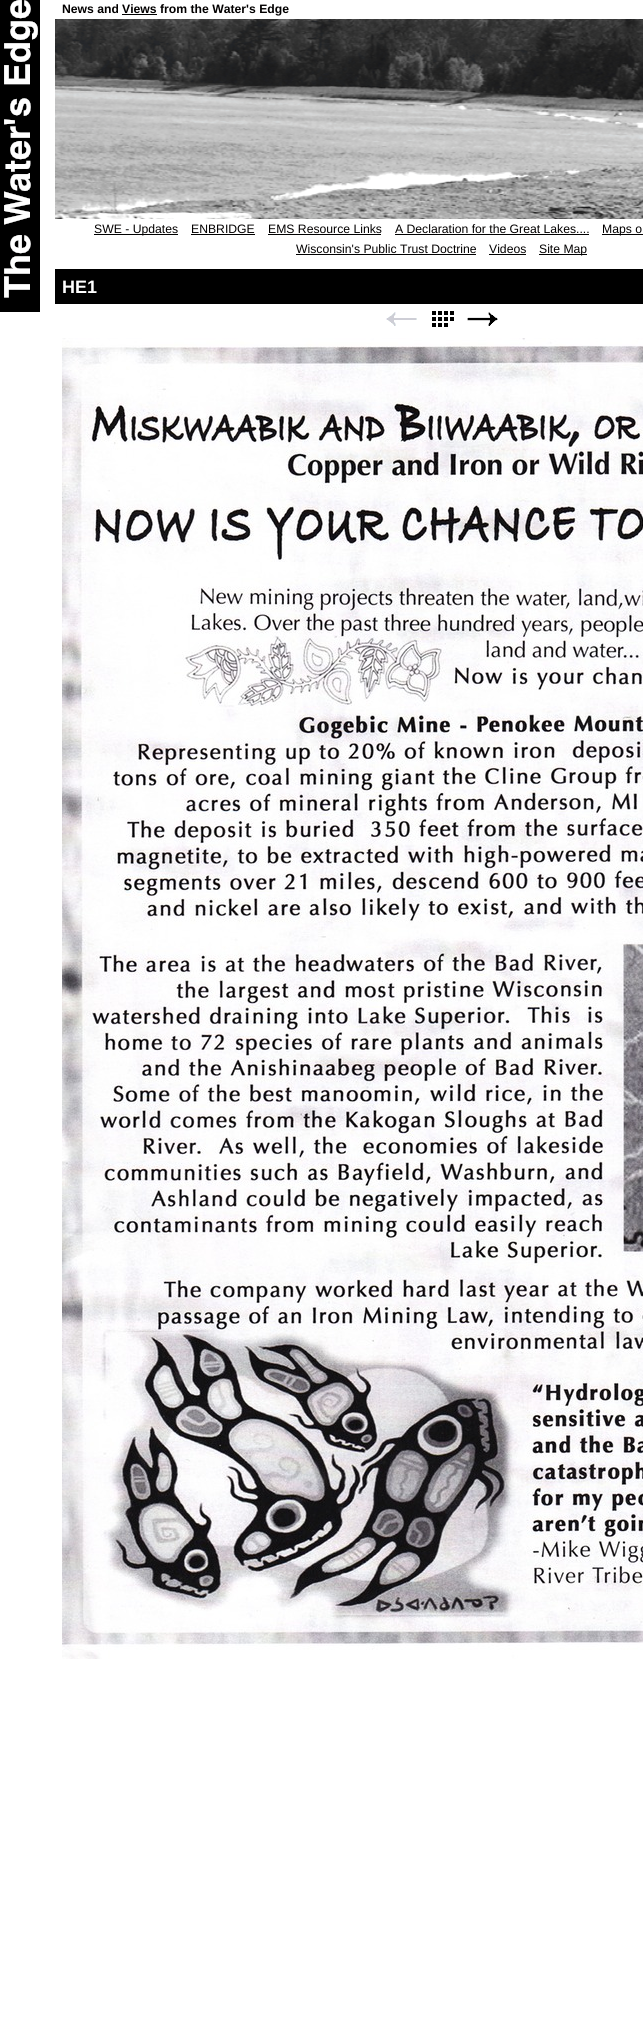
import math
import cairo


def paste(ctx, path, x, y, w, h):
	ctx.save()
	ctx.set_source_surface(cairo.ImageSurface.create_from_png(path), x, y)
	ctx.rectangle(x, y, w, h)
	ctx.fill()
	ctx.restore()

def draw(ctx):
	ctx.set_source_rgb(1, 1, 1)
	ctx.paint()
	paste(ctx, 'media/1.png', 55, 19, 588, 200)
	paste(ctx, 'media/2.png', 0, 0, 40, 312)
	ctx.select_font_face('Liberation Sans', cairo.FONT_SLANT_NORMAL, cairo.FONT_WEIGHT_BOLD)
	ctx.set_font_size(12.2)
	ctx.set_source_rgb(0.008, 0, 0)
	ctx.move_to(62, 13)
	ctx.show_text('News and')
	ctx.move_to(122, 13)
	ctx.show_text('Views')
	ctx.set_source_rgb(0, 0, 0)
	ctx.rectangle(122, 14, 35, 1)
	ctx.fill()
	ctx.set_source_rgb(0.008, 0, 0)
	ctx.move_to(160, 13)
	ctx.show_text('from the Water\'s Edge')
	ctx.set_source_rgb(0, 0, 0)
	ctx.rectangle(94, 234, 84, 1)
	ctx.fill()
	ctx.select_font_face('Liberation Sans')
	ctx.set_source_rgb(0.008, 0, 0)
	ctx.move_to(94, 233)
	ctx.show_text('SWE - Updates')
	ctx.move_to(191, 233)
	ctx.show_text('ENBRIDGE')
	ctx.set_source_rgb(0, 0, 0)
	ctx.rectangle(191, 234, 64, 1)
	ctx.fill()
	ctx.set_source_rgb(0.008, 0, 0)
	ctx.move_to(268, 233)
	ctx.show_text('EMS Resource Links')
	ctx.set_source_rgb(0, 0, 0)
	ctx.rectangle(268, 234, 113, 1)
	ctx.fill()
	ctx.set_source_rgb(0.008, 0, 0)
	ctx.move_to(395, 233)
	ctx.show_text('A Declaration for the Great Lakes....')
	ctx.set_source_rgb(0, 0, 0)
	ctx.rectangle(395, 234, 194, 1)
	ctx.fill()
	ctx.rectangle(602, 234, 41, 1)
	ctx.fill()
	ctx.set_source_rgb(0.008, 0, 0)
	ctx.move_to(602, 233)
	ctx.show_text('Maps o')
	ctx.move_to(296, 253)
	ctx.show_text('Wisconsin\'s Public Trust Doctrine')
	ctx.set_source_rgb(0, 0, 0)
	ctx.rectangle(296, 254, 180, 1)
	ctx.fill()
	ctx.set_source_rgb(0.008, 0, 0)
	ctx.move_to(489, 253)
	ctx.show_text('Videos')
	ctx.set_source_rgb(0, 0, 0)
	ctx.rectangle(489, 254, 37, 1)
	ctx.fill()
	ctx.rectangle(539, 254, 48, 1)
	ctx.fill()
	ctx.set_source_rgb(0.008, 0, 0)
	ctx.move_to(539, 253)
	ctx.show_text('Site Map')
	ctx.set_source_rgb(0, 0, 0)
	ctx.rectangle(55, 269, 588, 35)
	ctx.fill()
	ctx.select_font_face('Liberation Sans', cairo.FONT_SLANT_NORMAL, cairo.FONT_WEIGHT_BOLD)
	ctx.set_font_size(18)
	ctx.set_source_rgb(1, 1, 1)
	ctx.move_to(62, 293)
	ctx.show_text('HE1')
	paste(ctx, 'media/3.png', 386, 312, 31, 14)
	paste(ctx, 'media/4.png', 432, 311, 22, 16)
	paste(ctx, 'media/5.png', 467, 312, 31, 14)
	paste(ctx, 'media/6.png', 62, 338, 581, 1321)


surface = cairo.ImageSurface(cairo.FORMAT_RGB24, 643, 2031)
ctx = cairo.Context(surface)
options = cairo.FontOptions()
options.set_hint_metrics(cairo.HINT_METRICS_OFF)
options.set_hint_style(cairo.HINT_STYLE_NONE)
ctx.set_font_options(options)
ctx.set_miter_limit(4)
draw(ctx)
surface.write_to_png('image.png')
